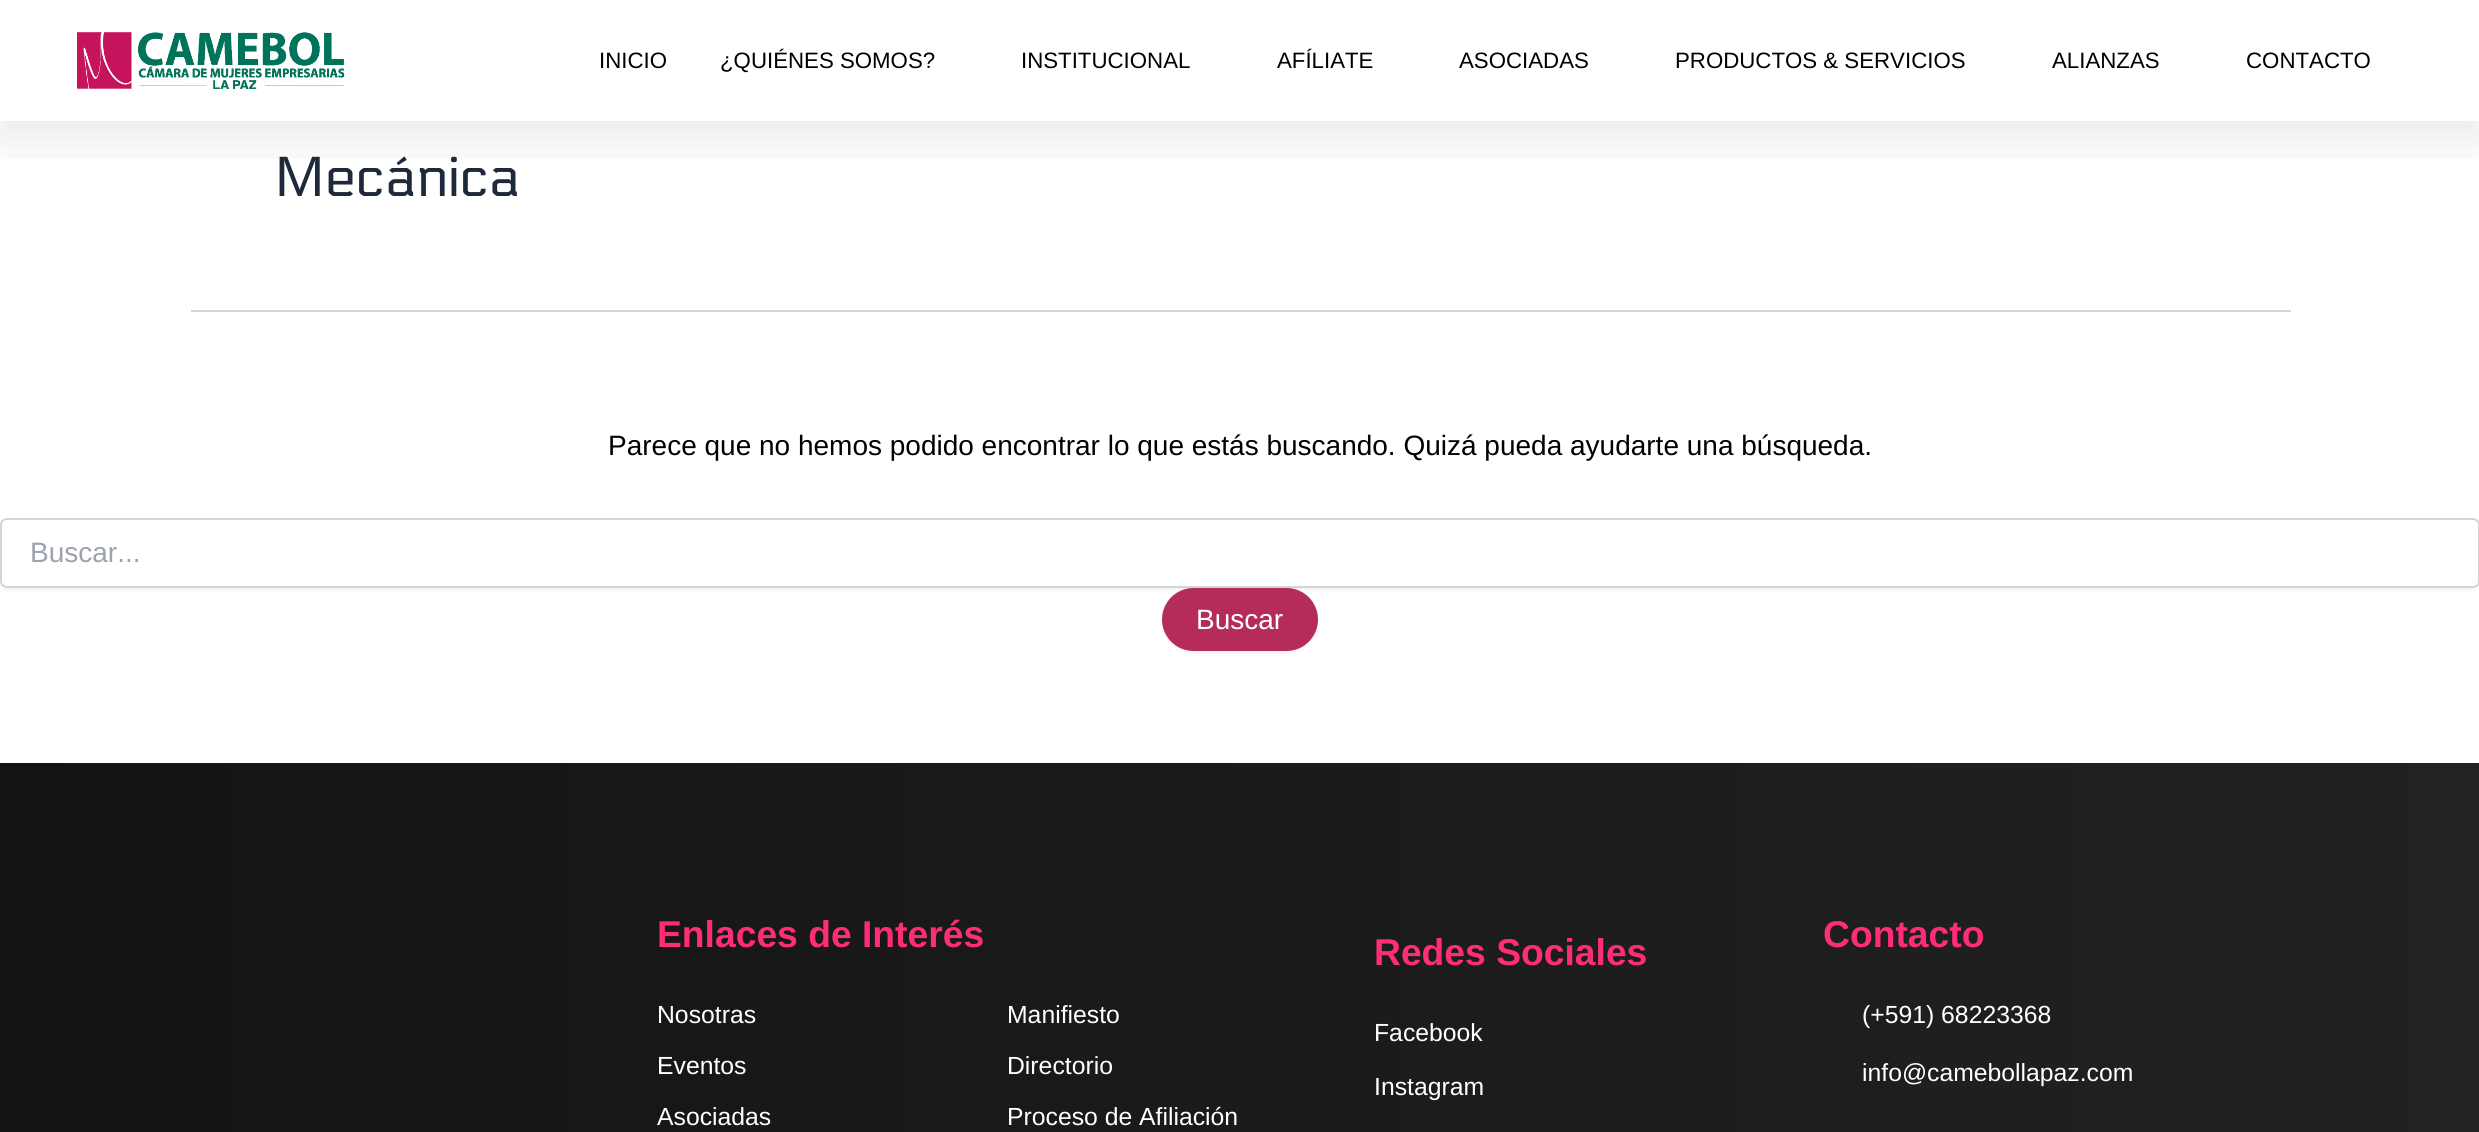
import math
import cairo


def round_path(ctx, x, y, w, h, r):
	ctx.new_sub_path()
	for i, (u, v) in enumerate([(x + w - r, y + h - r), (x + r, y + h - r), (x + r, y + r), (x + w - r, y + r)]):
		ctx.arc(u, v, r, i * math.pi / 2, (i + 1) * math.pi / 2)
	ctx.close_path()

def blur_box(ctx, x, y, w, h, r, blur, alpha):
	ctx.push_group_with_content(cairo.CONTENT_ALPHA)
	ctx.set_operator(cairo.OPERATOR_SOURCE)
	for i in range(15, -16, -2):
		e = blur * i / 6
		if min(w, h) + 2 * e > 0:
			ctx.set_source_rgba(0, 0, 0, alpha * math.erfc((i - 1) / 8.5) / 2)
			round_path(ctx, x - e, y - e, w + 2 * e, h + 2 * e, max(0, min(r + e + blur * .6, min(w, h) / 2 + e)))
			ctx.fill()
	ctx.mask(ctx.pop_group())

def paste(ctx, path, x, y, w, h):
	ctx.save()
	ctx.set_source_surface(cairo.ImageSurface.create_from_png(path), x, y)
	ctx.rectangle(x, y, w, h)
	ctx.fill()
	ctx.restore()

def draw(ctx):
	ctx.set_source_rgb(1, 1, 1)
	ctx.paint()
	ctx.save()
	ctx.rectangle(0, 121, 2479, 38)
	ctx.clip()
	ctx.set_source_rgb(0, 0, 0)
	blur_box(ctx, 0, 14, 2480, 121, 0, 28, 0.1)
	ctx.restore()
	ctx.set_source_rgba(1, 1, 1, 0.78)
	ctx.rectangle(18, 120, 2444, 1)
	ctx.fill()
	paste(ctx, 'media/1.png', 77, 32, 268, 57)
	ctx.select_font_face('Liberation Sans')
	ctx.set_font_size(22.25)
	ctx.set_source_rgb(0, 0, 0)
	for x, y, s in [
		(599, 68, 'INICIO'),
		(720, 68, '¿QUIÉNES SOMOS?'),
		(1021, 68, 'INSTITUCIONAL'),
		(1277, 68, 'AFÍLIATE'),
		(1459, 68, 'ASOCIADAS'),
		(1675, 68, 'PRODUCTOS & SERVICIOS'),
		(2052, 68, 'ALIANZAS'),
		(2246, 68, 'CONTACTO'),
	]:
		ctx.move_to(x, y)
		ctx.show_text(s)
	ctx.set_source_rgb(0.82, 0.835, 0.859)
	ctx.rectangle(191, 310, 2100, 2)
	ctx.fill()
	ctx.select_font_face('Electrolize')
	ctx.set_font_size(56)
	ctx.set_source_rgb(0.118, 0.161, 0.231)
	ctx.move_to(274, 196)
	ctx.show_text('Mecánica')
	ctx.select_font_face('Liberation Sans')
	ctx.set_font_size(28)
	ctx.set_source_rgb(0, 0, 0)
	ctx.move_to(608, 455)
	ctx.show_text('Parece que no hemos podido encontrar lo que estás buscando. Quizá pueda ayudarte una búsqueda.')
	ctx.set_source_rgb(0, 0, 0)
	blur_box(ctx, 0, 520, 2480, 70, 7, 2, 0.05)
	ctx.set_source_rgb(1, 1, 1)
	round_path(ctx, 1, 519, 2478, 68, 6)
	ctx.fill_preserve()
	ctx.set_source_rgb(0.82, 0.835, 0.859)
	ctx.stroke()
	ctx.set_source_rgb(0.612, 0.639, 0.686)
	ctx.move_to(30, 562)
	ctx.show_text('Buscar...')
	ctx.set_source_rgb(0, 0, 0)
	blur_box(ctx, 1162, 590, 156, 63, 31.5, 2, 0.05)
	ctx.set_source_rgb(0.71, 0.173, 0.361)
	round_path(ctx, 1162, 588, 156, 63, 31.5)
	ctx.fill()
	ctx.set_source_rgb(1, 1, 1)
	ctx.move_to(1196, 629)
	ctx.show_text('Buscar')
	gradient = cairo.LinearGradient(0, 1079, 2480, 1079)
	gradient.add_color_stop_rgba(0, 0.075, 0.075, 0.075, 1)
	gradient.add_color_stop_rgba(1, 0.133, 0.133, 0.133, 1)
	ctx.set_source(gradient)
	ctx.rectangle(0, 763, 2479, 369)
	ctx.fill()
	ctx.select_font_face('Liberation Sans', cairo.FONT_SLANT_NORMAL, cairo.FONT_WEIGHT_BOLD)
	ctx.set_font_size(37.25)
	ctx.set_source_rgb(1, 0.176, 0.467)
	ctx.move_to(657, 947)
	ctx.show_text('Enlaces de Interés')
	ctx.select_font_face('Liberation Sans')
	ctx.set_font_size(24.75)
	ctx.set_source_rgb(1, 1, 1)
	for x, y, s in [
		(657, 1023, 'Nosotras'),
		(657, 1074, 'Eventos'),
		(657, 1125, 'Asociadas'),
		(1007, 1023, 'Manifiesto'),
		(1007, 1074, 'Directorio'),
		(1007, 1125, 'Proceso de Afiliación'),
	]:
		ctx.move_to(x, y)
		ctx.show_text(s)
	ctx.select_font_face('Liberation Sans', cairo.FONT_SLANT_NORMAL, cairo.FONT_WEIGHT_BOLD)
	ctx.set_font_size(37.25)
	ctx.set_source_rgb(1, 0.176, 0.467)
	ctx.move_to(1374, 965)
	ctx.show_text('Redes Sociales')
	ctx.select_font_face('Liberation Sans')
	ctx.set_font_size(24.75)
	ctx.set_source_rgb(1, 1, 1)
	ctx.move_to(1374, 1041)
	ctx.show_text('Facebook')
	ctx.move_to(1374, 1095)
	ctx.show_text('Instagram')
	ctx.select_font_face('Liberation Sans', cairo.FONT_SLANT_NORMAL, cairo.FONT_WEIGHT_BOLD)
	ctx.set_font_size(37.25)
	ctx.set_source_rgb(1, 0.176, 0.467)
	ctx.move_to(1823, 947)
	ctx.show_text('Contacto')
	ctx.select_font_face('Liberation Sans')
	ctx.set_font_size(24.75)
	ctx.set_source_rgb(1, 1, 1)
	ctx.move_to(1862, 1023)
	ctx.show_text('(+591) 68223368')
	ctx.move_to(1862, 1081)
	ctx.show_text('info@camebollapaz.com')


surface = cairo.ImageSurface(cairo.FORMAT_RGB24, 2479, 1132)
ctx = cairo.Context(surface)
options = cairo.FontOptions()
options.set_hint_metrics(cairo.HINT_METRICS_OFF)
options.set_hint_style(cairo.HINT_STYLE_NONE)
ctx.set_font_options(options)
ctx.set_miter_limit(4)
draw(ctx)
surface.write_to_png('image.png')
